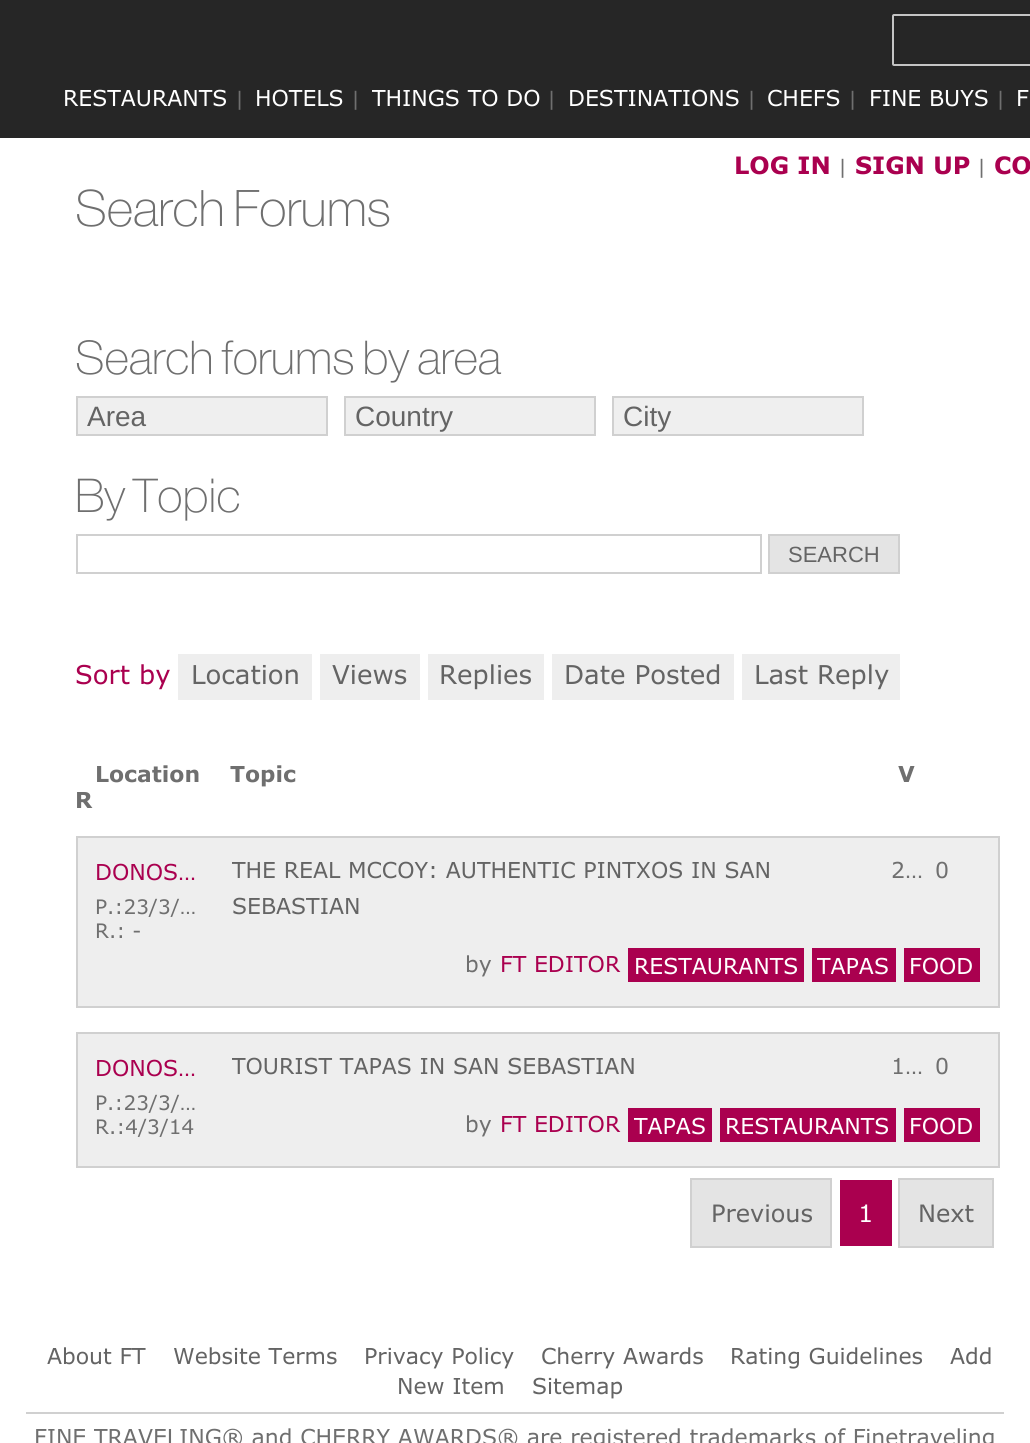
import math
import cairo


def round_path(ctx, x, y, w, h, r):
	ctx.new_sub_path()
	for i, (u, v) in enumerate([(x + w - r, y + h - r), (x + r, y + h - r), (x + r, y + r), (x + w - r, y + r)]):
		ctx.arc(u, v, r, i * math.pi / 2, (i + 1) * math.pi / 2)
	ctx.close_path()

def draw(ctx):
	ctx.set_source_rgb(1, 1, 1)
	ctx.paint()
	ctx.set_source_rgb(0.149, 0.149, 0.149)
	ctx.rectangle(0, 0, 1030, 138)
	ctx.fill()
	round_path(ctx, 893, 15, 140, 50, 1)
	ctx.set_source_rgb(0.769, 0.769, 0.769)
	ctx.stroke()
	ctx.select_font_face('Verdana')
	ctx.set_font_size(22)
	ctx.set_source_rgb(1, 1, 1)
	ctx.move_to(63, 106)
	ctx.show_text('RESTAURANTS')
	ctx.set_font_size(20)
	ctx.set_source_rgb(0.435, 0.435, 0.435)
	ctx.move_to(235, 106)
	ctx.show_text('|')
	ctx.set_font_size(22)
	ctx.set_source_rgb(1, 1, 1)
	ctx.move_to(255, 106)
	ctx.show_text('HOTELS')
	ctx.set_font_size(20)
	ctx.set_source_rgb(0.435, 0.435, 0.435)
	ctx.move_to(351, 106)
	ctx.show_text('|')
	ctx.set_font_size(22)
	ctx.set_source_rgb(1, 1, 1)
	ctx.move_to(372, 106)
	ctx.show_text('THINGS TO DO')
	ctx.set_font_size(20)
	ctx.set_source_rgb(0.435, 0.435, 0.435)
	ctx.move_to(547, 106)
	ctx.show_text('|')
	ctx.set_font_size(22)
	ctx.set_source_rgb(1, 1, 1)
	ctx.move_to(568, 106)
	ctx.show_text('DESTINATIONS')
	ctx.set_font_size(20)
	ctx.set_source_rgb(0.435, 0.435, 0.435)
	ctx.move_to(747, 106)
	ctx.show_text('|')
	ctx.set_font_size(22)
	ctx.set_source_rgb(1, 1, 1)
	ctx.move_to(767, 106)
	ctx.show_text('CHEFS')
	ctx.set_font_size(20)
	ctx.set_source_rgb(0.435, 0.435, 0.435)
	ctx.move_to(848, 106)
	ctx.show_text('|')
	ctx.set_font_size(22)
	ctx.set_source_rgb(1, 1, 1)
	ctx.move_to(869, 106)
	ctx.show_text('FINE BUYS')
	ctx.set_font_size(20)
	ctx.set_source_rgb(0.435, 0.435, 0.435)
	ctx.move_to(996, 106)
	ctx.show_text('|')
	ctx.set_font_size(22)
	ctx.set_source_rgb(1, 1, 1)
	ctx.move_to(1016, 106)
	ctx.show_text('F')
	ctx.select_font_face('Verdana', cairo.FONT_SLANT_NORMAL, cairo.FONT_WEIGHT_BOLD)
	ctx.set_font_size(24)
	ctx.set_source_rgb(0.667, 0, 0.31)
	ctx.move_to(734, 174)
	ctx.show_text('LOG IN')
	ctx.select_font_face('Verdana')
	ctx.set_font_size(20)
	ctx.set_source_rgb(0.435, 0.435, 0.435)
	ctx.move_to(838, 174)
	ctx.show_text('|')
	ctx.select_font_face('Verdana', cairo.FONT_SLANT_NORMAL, cairo.FONT_WEIGHT_BOLD)
	ctx.set_font_size(24)
	ctx.set_source_rgb(0.667, 0, 0.31)
	ctx.move_to(855, 174)
	ctx.show_text('SIGN UP')
	ctx.select_font_face('Verdana')
	ctx.set_font_size(20)
	ctx.set_source_rgb(0.435, 0.435, 0.435)
	ctx.move_to(977, 174)
	ctx.show_text('|')
	ctx.select_font_face('Verdana', cairo.FONT_SLANT_NORMAL, cairo.FONT_WEIGHT_BOLD)
	ctx.set_font_size(24)
	ctx.set_source_rgb(0.667, 0, 0.31)
	ctx.move_to(994, 174)
	ctx.show_text('CO')
	ctx.select_font_face('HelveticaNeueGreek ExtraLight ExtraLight')
	ctx.set_font_size(54)
	ctx.set_source_rgb(0.435, 0.435, 0.435)
	ctx.move_to(75, 226)
	ctx.show_text('Search Forums')
	ctx.set_font_size(50)
	ctx.move_to(75, 374)
	ctx.show_text('Search forums by area')
	ctx.set_source_rgb(0.937, 0.937, 0.937)
	ctx.rectangle(77, 397, 250, 38)
	ctx.fill_preserve()
	ctx.set_source_rgb(0.816, 0.816, 0.816)
	ctx.stroke()
	ctx.select_font_face('Liberation Sans')
	ctx.set_font_size(28)
	ctx.set_source_rgb(0.392, 0.392, 0.392)
	ctx.move_to(87, 426)
	ctx.show_text('Area')
	ctx.set_source_rgb(0.937, 0.937, 0.937)
	ctx.rectangle(345, 397, 250, 38)
	ctx.fill_preserve()
	ctx.set_source_rgb(0.816, 0.816, 0.816)
	ctx.stroke()
	ctx.set_source_rgb(0.392, 0.392, 0.392)
	ctx.move_to(355, 426)
	ctx.show_text('Country')
	ctx.set_source_rgb(0.937, 0.937, 0.937)
	ctx.rectangle(613, 397, 250, 38)
	ctx.fill_preserve()
	ctx.set_source_rgb(0.816, 0.816, 0.816)
	ctx.stroke()
	ctx.set_source_rgb(0.392, 0.392, 0.392)
	ctx.move_to(623, 426)
	ctx.show_text('City')
	ctx.select_font_face('HelveticaNeueGreek ExtraLight ExtraLight')
	ctx.set_font_size(50)
	ctx.set_source_rgb(0.435, 0.435, 0.435)
	ctx.move_to(75, 512)
	ctx.show_text('By Topic')
	ctx.rectangle(77, 535, 684, 38)
	ctx.set_source_rgb(0.816, 0.816, 0.816)
	ctx.stroke()
	ctx.set_source_rgb(0.894, 0.894, 0.894)
	ctx.rectangle(769, 535, 130, 38)
	ctx.fill_preserve()
	ctx.set_source_rgb(0.816, 0.816, 0.816)
	ctx.stroke()
	ctx.select_font_face('Liberation Sans')
	ctx.set_font_size(22)
	ctx.set_source_rgb(0.392, 0.392, 0.392)
	ctx.move_to(788, 562)
	ctx.show_text('SEARCH')
	ctx.select_font_face('Verdana')
	ctx.set_font_size(26)
	ctx.set_source_rgb(0.667, 0, 0.31)
	ctx.move_to(75, 684)
	ctx.show_text('Sort by')
	ctx.set_source_rgb(0.933, 0.933, 0.933)
	ctx.rectangle(178, 654, 134, 46)
	ctx.fill()
	ctx.set_source_rgb(0.392, 0.392, 0.392)
	ctx.move_to(191, 684)
	ctx.show_text('Location')
	ctx.set_source_rgb(0.933, 0.933, 0.933)
	ctx.rectangle(320, 654, 100, 46)
	ctx.fill()
	ctx.set_source_rgb(0.392, 0.392, 0.392)
	ctx.move_to(332, 684)
	ctx.show_text('Views')
	ctx.set_source_rgb(0.933, 0.933, 0.933)
	ctx.rectangle(428, 654, 116, 46)
	ctx.fill()
	ctx.set_source_rgb(0.392, 0.392, 0.392)
	ctx.move_to(439, 684)
	ctx.show_text('Replies')
	ctx.set_source_rgb(0.933, 0.933, 0.933)
	ctx.rectangle(552, 654, 182, 46)
	ctx.fill()
	ctx.set_source_rgb(0.392, 0.392, 0.392)
	ctx.move_to(564, 684)
	ctx.show_text('Date Posted')
	ctx.set_source_rgb(0.933, 0.933, 0.933)
	ctx.rectangle(742, 654, 158, 46)
	ctx.fill()
	ctx.set_source_rgb(0.392, 0.392, 0.392)
	ctx.move_to(754, 684)
	ctx.show_text('Last Reply')
	ctx.select_font_face('Verdana', cairo.FONT_SLANT_NORMAL, cairo.FONT_WEIGHT_BOLD)
	ctx.set_font_size(22)
	ctx.set_source_rgb(0.435, 0.435, 0.435)
	for x, y, s in [
		(95, 782, 'Location'),
		(230, 782, 'Topic'),
		(898, 782, 'V'),
		(75, 808, 'R'),
	]:
		ctx.move_to(x, y)
		ctx.show_text(s)
	ctx.set_source_rgb(0.933, 0.933, 0.933)
	ctx.rectangle(77, 837, 922, 170)
	ctx.fill_preserve()
	ctx.set_source_rgb(0.816, 0.816, 0.816)
	ctx.stroke()
	ctx.select_font_face('Verdana')
	ctx.set_source_rgb(0.667, 0, 0.31)
	ctx.move_to(95, 880)
	ctx.show_text('DONOS…')
	ctx.set_font_size(20)
	ctx.set_source_rgb(0.435, 0.435, 0.435)
	ctx.move_to(95, 914)
	ctx.show_text('P.:23/3/…')
	ctx.move_to(95, 938)
	ctx.show_text('R.: -')
	ctx.set_font_size(22)
	ctx.set_source_rgb(0.392, 0.392, 0.392)
	ctx.move_to(232, 878)
	ctx.show_text('THE REAL MCCOY: AUTHENTIC PINTXOS IN SAN')
	ctx.move_to(232, 914)
	ctx.show_text('SEBASTIAN')
	ctx.set_source_rgb(0.435, 0.435, 0.435)
	for x, y, s in [
		(891, 878, '2…'),
		(935, 878, '0'),
		(465, 972, 'by'),
	]:
		ctx.move_to(x, y)
		ctx.show_text(s)
	ctx.set_source_rgb(0.667, 0, 0.31)
	ctx.move_to(500, 972)
	ctx.show_text('FT EDITOR')
	ctx.rectangle(628, 948, 176, 34)
	ctx.fill()
	ctx.set_source_rgb(1, 1, 1)
	ctx.move_to(634, 974)
	ctx.show_text('RESTAURANTS')
	ctx.set_source_rgb(0.667, 0, 0.31)
	ctx.rectangle(812, 948, 84, 34)
	ctx.fill()
	ctx.set_source_rgb(1, 1, 1)
	ctx.move_to(817, 974)
	ctx.show_text('TAPAS')
	ctx.set_source_rgb(0.667, 0, 0.31)
	ctx.rectangle(904, 948, 76, 34)
	ctx.fill()
	ctx.set_source_rgb(1, 1, 1)
	ctx.move_to(909, 974)
	ctx.show_text('FOOD')
	ctx.set_source_rgb(0.933, 0.933, 0.933)
	ctx.rectangle(77, 1033, 922, 134)
	ctx.fill_preserve()
	ctx.set_source_rgb(0.816, 0.816, 0.816)
	ctx.stroke()
	ctx.set_source_rgb(0.667, 0, 0.31)
	ctx.move_to(95, 1076)
	ctx.show_text('DONOS…')
	ctx.set_font_size(20)
	ctx.set_source_rgb(0.435, 0.435, 0.435)
	ctx.move_to(95, 1110)
	ctx.show_text('P.:23/3/…')
	ctx.move_to(95, 1134)
	ctx.show_text('R.:4/3/14')
	ctx.set_font_size(22)
	ctx.set_source_rgb(0.392, 0.392, 0.392)
	ctx.move_to(232, 1074)
	ctx.show_text('TOURIST TAPAS IN SAN SEBASTIAN')
	ctx.set_source_rgb(0.435, 0.435, 0.435)
	for x, y, s in [
		(891, 1074, '1…'),
		(935, 1074, '0'),
		(465, 1132, 'by'),
	]:
		ctx.move_to(x, y)
		ctx.show_text(s)
	ctx.set_source_rgb(0.667, 0, 0.31)
	ctx.move_to(500, 1132)
	ctx.show_text('FT EDITOR')
	ctx.rectangle(628, 1108, 84, 34)
	ctx.fill()
	ctx.set_source_rgb(1, 1, 1)
	ctx.move_to(634, 1134)
	ctx.show_text('TAPAS')
	ctx.set_source_rgb(0.667, 0, 0.31)
	ctx.rectangle(720, 1108, 176, 34)
	ctx.fill()
	ctx.set_source_rgb(1, 1, 1)
	ctx.move_to(725, 1134)
	ctx.show_text('RESTAURANTS')
	ctx.set_source_rgb(0.667, 0, 0.31)
	ctx.rectangle(904, 1108, 76, 34)
	ctx.fill()
	ctx.set_source_rgb(1, 1, 1)
	ctx.move_to(909, 1134)
	ctx.show_text('FOOD')
	ctx.set_source_rgb(0.894, 0.894, 0.894)
	ctx.rectangle(691, 1179, 140, 68)
	ctx.fill_preserve()
	ctx.set_source_rgb(0.816, 0.816, 0.816)
	ctx.stroke()
	ctx.set_font_size(24)
	ctx.set_source_rgb(0.392, 0.392, 0.392)
	ctx.move_to(711, 1222)
	ctx.show_text('Previous')
	ctx.set_source_rgb(0.667, 0, 0.31)
	ctx.rectangle(840, 1180, 52, 66)
	ctx.fill()
	ctx.set_source_rgb(1, 1, 1)
	ctx.move_to(858, 1222)
	ctx.show_text('1')
	ctx.set_source_rgb(0.894, 0.894, 0.894)
	ctx.rectangle(899, 1179, 94, 68)
	ctx.fill_preserve()
	ctx.set_source_rgb(0.816, 0.816, 0.816)
	ctx.stroke()
	ctx.set_source_rgb(0.392, 0.392, 0.392)
	ctx.move_to(918, 1222)
	ctx.show_text('Next')
	ctx.set_font_size(22)
	for x, y, s in [
		(47, 1364, 'About FT'),
		(173, 1364, 'Website Terms'),
		(364, 1364, 'Privacy Policy'),
		(541, 1364, 'Cherry Awards'),
		(730, 1364, 'Rating Guidelines'),
		(950, 1364, 'Add'),
		(397, 1394, 'New Item'),
		(532, 1394, 'Sitemap'),
	]:
		ctx.move_to(x, y)
		ctx.show_text(s)
	ctx.set_source_rgb(0.816, 0.816, 0.816)
	ctx.rectangle(26, 1412, 978, 2)
	ctx.fill()
	ctx.set_source_rgb(0.435, 0.435, 0.435)
	ctx.move_to(34, 1445)
	ctx.show_text('FINE TRAVELING® and CHERRY AWARDS® are registered trademarks of Finetraveling')


surface = cairo.ImageSurface(cairo.FORMAT_RGB24, 1030, 1443)
ctx = cairo.Context(surface)
options = cairo.FontOptions()
options.set_hint_metrics(cairo.HINT_METRICS_OFF)
options.set_hint_style(cairo.HINT_STYLE_NONE)
ctx.set_font_options(options)
ctx.set_miter_limit(4)
draw(ctx)
surface.write_to_png('image.png')
